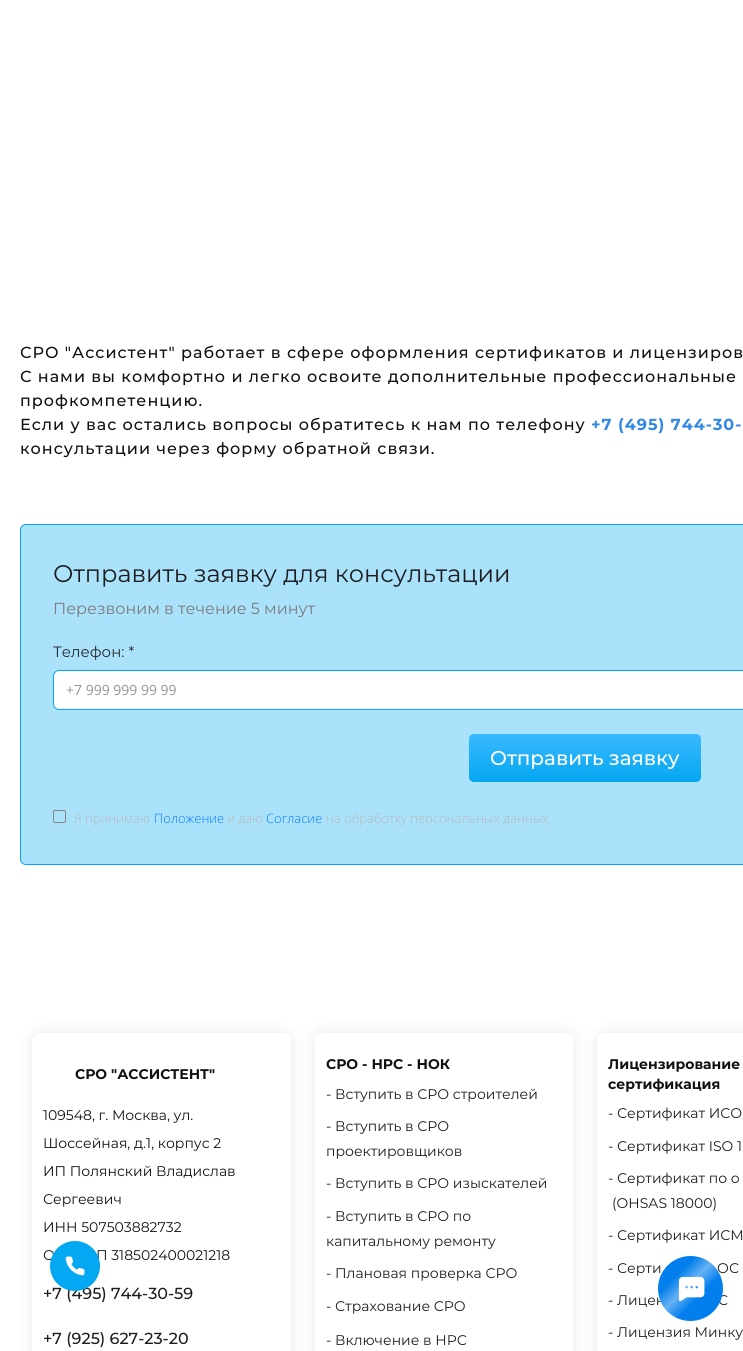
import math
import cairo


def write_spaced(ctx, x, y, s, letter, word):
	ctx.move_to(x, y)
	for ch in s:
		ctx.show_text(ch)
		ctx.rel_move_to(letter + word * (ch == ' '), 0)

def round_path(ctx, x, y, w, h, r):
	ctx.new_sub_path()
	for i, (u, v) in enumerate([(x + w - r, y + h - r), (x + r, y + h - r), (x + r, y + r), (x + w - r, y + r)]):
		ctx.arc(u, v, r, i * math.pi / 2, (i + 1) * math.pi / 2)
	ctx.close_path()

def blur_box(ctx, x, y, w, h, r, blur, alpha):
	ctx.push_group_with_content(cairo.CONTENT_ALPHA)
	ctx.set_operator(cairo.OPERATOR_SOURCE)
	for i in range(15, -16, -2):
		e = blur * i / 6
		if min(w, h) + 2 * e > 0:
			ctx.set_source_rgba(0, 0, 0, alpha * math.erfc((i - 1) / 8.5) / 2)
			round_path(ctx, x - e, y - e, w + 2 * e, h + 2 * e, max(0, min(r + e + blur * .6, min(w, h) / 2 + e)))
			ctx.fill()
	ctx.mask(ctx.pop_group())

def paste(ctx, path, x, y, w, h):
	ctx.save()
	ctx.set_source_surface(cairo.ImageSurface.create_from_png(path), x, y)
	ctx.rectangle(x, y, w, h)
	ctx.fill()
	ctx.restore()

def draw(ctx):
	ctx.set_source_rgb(1, 1, 1)
	ctx.paint()
	ctx.select_font_face('Montserrat Medium')
	ctx.set_font_size(16)
	ctx.set_source_rgb(0.067, 0.067, 0.067)
	for x, y, s in [
		(20, 358, 'СРО "Ассистент" работает в сфере оформления сертификатов и лицензиров'),
		(20, 382, 'С нами вы комфортно и легко освоите дополнительные профессиональные'),
		(20, 406, 'профкомпетенцию.'),
		(20, 430, 'Если у вас остались вопросы обратитесь к нам по телефону'),
	]:
		write_spaced(ctx, x, y, s, 1, 0)
	ctx.select_font_face('Montserrat', cairo.FONT_SLANT_NORMAL, cairo.FONT_WEIGHT_BOLD)
	ctx.set_source_rgb(0.196, 0.533, 0.902)
	write_spaced(ctx, 591, 430, '+7 (495) 744-30-', 1, 0)
	ctx.select_font_face('Montserrat Medium')
	ctx.set_source_rgb(0.067, 0.067, 0.067)
	write_spaced(ctx, 20, 454, 'консультации через форму обратной связи.', 1, 0)
	ctx.set_source_rgb(0.667, 0.886, 0.984)
	round_path(ctx, 20.5, 524.5, 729, 340, 5.5)
	ctx.fill_preserve()
	ctx.set_source_rgb(0.016, 0.655, 0.949)
	ctx.set_line_width(1)
	ctx.stroke()
	ctx.select_font_face('Montserrat')
	ctx.set_font_size(24)
	ctx.set_source_rgb(0.114, 0.114, 0.114)
	ctx.move_to(53, 582)
	ctx.show_text('Отправить заявку для консультации')
	ctx.set_font_size(16)
	ctx.set_source_rgb(0.482, 0.482, 0.482)
	ctx.move_to(53, 614)
	ctx.show_text('Перезвоним в течение 5 минут')
	ctx.set_font_size(15)
	ctx.set_source_rgb(0.157, 0.165, 0.184)
	ctx.move_to(53, 657)
	ctx.show_text('Телефон: *')
	ctx.set_source_rgb(1, 1, 1)
	round_path(ctx, 53.5, 670.5, 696, 39, 5.5)
	ctx.fill_preserve()
	ctx.set_source_rgb(0.016, 0.655, 0.949)
	ctx.stroke()
	ctx.select_font_face('Open Sans')
	ctx.set_font_size(14)
	ctx.set_source_rgb(0.58, 0.584, 0.592)
	ctx.move_to(66, 695)
	ctx.show_text('+7 999 999 99 99')
	gradient = cairo.LinearGradient(585, 734, 585, 782)
	gradient.add_color_stop_rgba(0, 0.227, 0.725, 1, 1)
	gradient.add_color_stop_rgba(1, 0.016, 0.655, 0.949, 1)
	ctx.set_source(gradient)
	round_path(ctx, 469, 734, 232, 48, 5)
	ctx.fill()
	ctx.select_font_face('Montserrat Medium')
	ctx.set_font_size(20)
	ctx.set_source_rgb(1, 1, 1)
	ctx.move_to(490, 765)
	ctx.show_text('Отправить заявку')
	round_path(ctx, 53.5, 810.5, 12, 12, 1.5)
	ctx.set_source_rgb(0.522, 0.522, 0.522)
	ctx.stroke()
	ctx.select_font_face('Open Sans Light')
	ctx.set_font_size(13)
	ctx.set_source_rgb(0.722, 0.722, 0.722)
	ctx.move_to(74, 823)
	ctx.show_text('Я принимаю')
	ctx.set_source_rgb(0.024, 0.49, 1)
	ctx.move_to(154, 823)
	ctx.show_text('Положение')
	ctx.set_source_rgb(0.722, 0.722, 0.722)
	ctx.move_to(227, 823)
	ctx.show_text('и даю')
	ctx.set_source_rgb(0.024, 0.49, 1)
	ctx.move_to(266, 823)
	ctx.show_text('Согласие')
	ctx.set_source_rgb(0.722, 0.722, 0.722)
	ctx.move_to(326, 823)
	ctx.show_text('на обработку персональных данных.')
	ctx.save()
	ctx.set_fill_rule(cairo.FILL_RULE_EVEN_ODD)
	ctx.new_path()
	ctx.move_to(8, 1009)
	ctx.line_to(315, 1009)
	ctx.line_to(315, 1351)
	ctx.line_to(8, 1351)
	ctx.close_path()
	ctx.move_to(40, 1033)
	ctx.line_to(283, 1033)
	ctx.curve_to(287.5, 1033, 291, 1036.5, 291, 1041)
	ctx.line_to(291, 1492)
	ctx.curve_to(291, 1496.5, 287.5, 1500, 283, 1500)
	ctx.line_to(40, 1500)
	ctx.curve_to(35.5, 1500, 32, 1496.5, 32, 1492)
	ctx.line_to(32, 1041)
	ctx.curve_to(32, 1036.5, 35.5, 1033, 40, 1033)
	ctx.close_path()
	ctx.clip()
	ctx.set_source_rgb(0, 0, 0)
	blur_box(ctx, 32, 1033, 259, 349, 8, 7.5, 0.09)
	ctx.restore()
	ctx.select_font_face('Montserrat', cairo.FONT_SLANT_NORMAL, cairo.FONT_WEIGHT_BOLD)
	ctx.set_font_size(14)
	ctx.set_source_rgb(0.067, 0.067, 0.067)
	ctx.move_to(75, 1079)
	ctx.show_text('СРО "АССИСТЕНТ"')
	ctx.select_font_face('Montserrat')
	for x, y, s in [
		(43, 1120, '109548, г. Москва, ул.'),
		(43, 1148, 'Шоссейная, д.1, корпус 2'),
		(43, 1176, 'ИП Полянский Владислав'),
		(43, 1204, 'Сергеевич'),
		(43, 1232, 'ИНН 507503882732'),
		(43, 1260, 'О'),
		(96, 1260, 'П 318502400021218'),
	]:
		ctx.move_to(x, y)
		ctx.show_text(s)
	ctx.select_font_face('Montserrat Medium')
	ctx.set_font_size(16)
	ctx.set_source_rgb(0.114, 0.114, 0.114)
	ctx.move_to(43, 1299)
	ctx.show_text('+7 (495) 744-30-59')
	ctx.move_to(43, 1344)
	ctx.show_text('+7 (925) 627-23-20')
	ctx.save()
	ctx.set_fill_rule(cairo.FILL_RULE_EVEN_ODD)
	ctx.new_path()
	ctx.move_to(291, 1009)
	ctx.line_to(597, 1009)
	ctx.line_to(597, 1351)
	ctx.line_to(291, 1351)
	ctx.close_path()
	ctx.move_to(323, 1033)
	ctx.line_to(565, 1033)
	ctx.curve_to(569.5, 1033, 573, 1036.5, 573, 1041)
	ctx.line_to(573, 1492)
	ctx.curve_to(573, 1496.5, 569.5, 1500, 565, 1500)
	ctx.line_to(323, 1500)
	ctx.curve_to(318.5, 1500, 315, 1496.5, 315, 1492)
	ctx.line_to(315, 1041)
	ctx.curve_to(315, 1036.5, 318.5, 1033, 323, 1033)
	ctx.close_path()
	ctx.clip()
	ctx.set_source_rgb(0, 0, 0)
	blur_box(ctx, 315, 1033, 258, 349, 8, 7.5, 0.09)
	ctx.restore()
	ctx.select_font_face('Montserrat', cairo.FONT_SLANT_NORMAL, cairo.FONT_WEIGHT_BOLD)
	ctx.set_font_size(14)
	ctx.set_source_rgb(0.067, 0.067, 0.067)
	ctx.move_to(326, 1069)
	ctx.show_text('СРО - НРС - НОК')
	ctx.select_font_face('Montserrat')
	ctx.set_source_rgb(0.114, 0.114, 0.114)
	for x, y, s in [
		(326, 1099, '- Вступить в СРО строителей'),
		(326, 1131, '- Вступить в СРО'),
		(326, 1156, 'проектировщиков'),
		(326, 1188, '- Вступить в СРО изыскателей'),
		(326, 1221, '- Вступить в СРО по'),
		(326, 1246, 'капитальному ремонту'),
		(326, 1278, '- Плановая проверка СРО'),
		(326, 1311, '- Страхование СРО'),
		(326, 1345, '- Включение в НРС'),
	]:
		ctx.move_to(x, y)
		ctx.show_text(s)
	ctx.save()
	ctx.set_fill_rule(cairo.FILL_RULE_EVEN_ODD)
	ctx.new_path()
	ctx.move_to(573, 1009)
	ctx.line_to(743, 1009)
	ctx.line_to(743, 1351)
	ctx.line_to(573, 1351)
	ctx.close_path()
	ctx.move_to(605, 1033)
	ctx.line_to(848, 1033)
	ctx.curve_to(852.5, 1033, 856, 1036.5, 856, 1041)
	ctx.line_to(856, 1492)
	ctx.curve_to(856, 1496.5, 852.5, 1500, 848, 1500)
	ctx.line_to(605, 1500)
	ctx.curve_to(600.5, 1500, 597, 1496.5, 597, 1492)
	ctx.line_to(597, 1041)
	ctx.curve_to(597, 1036.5, 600.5, 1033, 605, 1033)
	ctx.close_path()
	ctx.clip()
	ctx.set_source_rgb(0, 0, 0)
	blur_box(ctx, 597, 1033, 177, 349, 8, 7.5, 0.09)
	ctx.restore()
	ctx.select_font_face('Montserrat', cairo.FONT_SLANT_NORMAL, cairo.FONT_WEIGHT_BOLD)
	ctx.set_source_rgb(0.067, 0.067, 0.067)
	ctx.move_to(608, 1069)
	ctx.show_text('Лицензирование')
	ctx.move_to(608, 1089)
	ctx.show_text('сертификация')
	ctx.select_font_face('Montserrat')
	ctx.set_source_rgb(0.114, 0.114, 0.114)
	for x, y, s in [
		(608, 1118, '- Сертификат ИСО'),
		(608, 1151, '- Сертификат ISO 1'),
		(608, 1183, '- Сертификат по о'),
		(612, 1208, '(OHSAS 18000)'),
		(608, 1240, '- Сертификат ИСМ'),
		(608, 1273, '- Серти'),
		(717, 1273, 'ОС'),
		(608, 1305, '- Лицен'),
		(718, 1305, 'С'),
		(608, 1337, '- Лицензия Минку'),
	]:
		ctx.move_to(x, y)
		ctx.show_text(s)
	ctx.set_source_rgb(0.016, 0.655, 0.949)
	ctx.new_path()
	ctx.arc(75, 1266, 25, 0, 2 * math.pi)
	ctx.fill()
	paste(ctx, 'media/1.png', 65, 1256, 20, 20)
	ctx.set_source_rgb(0.008, 0.498, 0.929)
	ctx.arc(690.5, 1288.5, 32.5, 0, 2 * math.pi)
	ctx.fill()
	paste(ctx, 'media/2.png', 678, 1276, 27, 26)
	gradient = cairo.LinearGradient(682, 1270, 704, 1292)
	gradient.add_color_stop_rgba(0, 1, 1, 1, 0)
	gradient.add_color_stop_rgba(0.5, 1, 1, 1, 0.4)
	gradient.add_color_stop_rgba(1, 1, 1, 1, 0)
	ctx.set_source(gradient)
	ctx.new_path()
	ctx.move_to(659, 1294)
	ctx.line_to(696, 1257)
	ctx.curve_to(707, 1258, 716, 1266, 720, 1275)
	ctx.line_to(677, 1318)
	ctx.curve_to(668, 1314, 660, 1305, 659, 1294)
	ctx.close_path()
	ctx.fill()


surface = cairo.ImageSurface(cairo.FORMAT_RGB24, 743, 1351)
ctx = cairo.Context(surface)
options = cairo.FontOptions()
options.set_hint_metrics(cairo.HINT_METRICS_OFF)
options.set_hint_style(cairo.HINT_STYLE_NONE)
ctx.set_font_options(options)
ctx.set_miter_limit(4)
draw(ctx)
surface.write_to_png('image.png')
